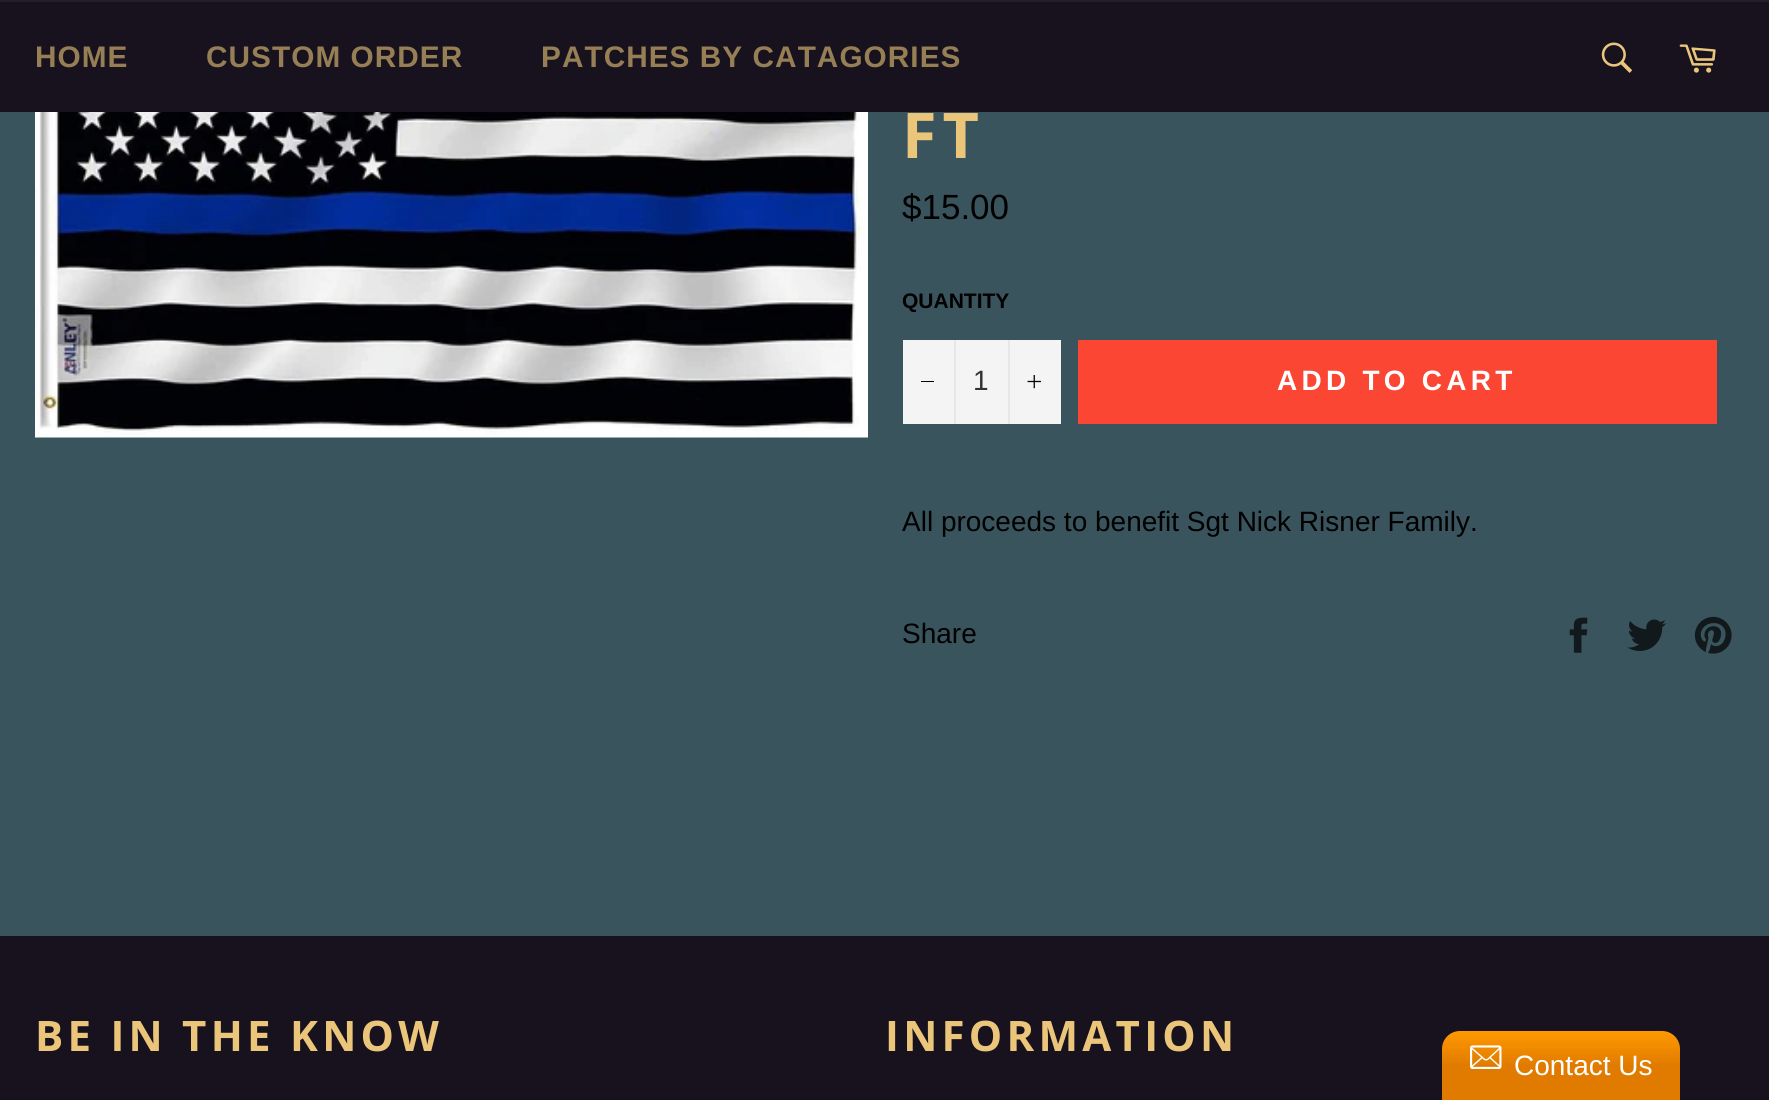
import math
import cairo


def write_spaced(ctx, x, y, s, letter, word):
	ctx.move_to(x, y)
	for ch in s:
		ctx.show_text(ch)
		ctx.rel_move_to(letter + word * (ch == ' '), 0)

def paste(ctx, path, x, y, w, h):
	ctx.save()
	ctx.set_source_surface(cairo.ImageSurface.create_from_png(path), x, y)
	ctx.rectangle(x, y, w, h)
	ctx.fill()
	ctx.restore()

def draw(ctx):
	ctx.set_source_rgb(0.224, 0.329, 0.365)
	ctx.paint()
	ctx.set_source_rgb(0.094, 0.071, 0.118)
	ctx.rectangle(0, 2, 1769, 110)
	ctx.fill()
	ctx.set_source_rgb(0.145, 0.11, 0.18)
	ctx.rectangle(0, 0, 1769, 2)
	ctx.fill()
	ctx.select_font_face('Liberation Sans', cairo.FONT_SLANT_NORMAL, cairo.FONT_WEIGHT_BOLD)
	ctx.set_font_size(29.75)
	ctx.set_source_rgb(0.588, 0.494, 0.333)
	for x, y, s in [
		(35, 67, 'HOME'),
		(206, 67, 'CUSTOM ORDER'),
		(541, 67, 'PATCHES BY CATAGORIES'),
	]:
		write_spaced(ctx, x, y, s, 1.05, 0)
	paste(ctx, 'media/1.png', 1601, 42, 32, 31)
	paste(ctx, 'media/2.png', 1679, 44, 37, 29)
	paste(ctx, 'media/3.png', 35, 112, 833, 326)
	ctx.select_font_face('Open Sans', cairo.FONT_SLANT_NORMAL, cairo.FONT_WEIGHT_BOLD)
	ctx.set_font_size(63)
	ctx.set_source_rgb(0.918, 0.776, 0.478)
	write_spaced(ctx, 902, 158, 'FT', 6, 0)
	ctx.select_font_face('Liberation Sans')
	ctx.set_font_size(35)
	ctx.set_source_rgb(0, 0, 0)
	ctx.move_to(902, 219)
	ctx.show_text('$15.00')
	ctx.select_font_face('Liberation Sans', cairo.FONT_SLANT_NORMAL, cairo.FONT_WEIGHT_BOLD)
	ctx.set_font_size(21)
	ctx.move_to(902, 308)
	ctx.show_text('QUANTITY')
	ctx.set_source_rgb(0.957, 0.957, 0.957)
	ctx.rectangle(903, 340, 158, 84)
	ctx.fill()
	ctx.set_source_rgb(0.906, 0.906, 0.906)
	ctx.rectangle(954, 340, 2, 84)
	ctx.fill()
	ctx.set_source_rgb(0, 0, 0)
	ctx.rectangle(921, 381, 13, 1)
	ctx.fill()
	ctx.select_font_face('Liberation Sans')
	ctx.set_font_size(28)
	ctx.set_source_rgb(0.2, 0.2, 0.2)
	ctx.move_to(973, 390)
	ctx.show_text('1')
	ctx.set_source_rgb(0.906, 0.906, 0.906)
	ctx.rectangle(1008, 340, 2, 84)
	ctx.fill()
	paste(ctx, 'media/4.png', 1027, 375, 14, 14)
	ctx.set_source_rgb(0.984, 0.275, 0.204)
	ctx.rectangle(1078, 340, 639, 84)
	ctx.fill()
	ctx.select_font_face('Liberation Sans', cairo.FONT_SLANT_NORMAL, cairo.FONT_WEIGHT_BOLD)
	ctx.set_source_rgb(1, 1, 1)
	write_spaced(ctx, 1277, 390, 'ADD TO CART', 4.25, 0)
	ctx.select_font_face('Liberation Sans')
	ctx.set_source_rgb(0, 0, 0)
	ctx.move_to(902, 531)
	ctx.show_text('All proceeds to benefit Sgt Nick Risner Family.')
	ctx.move_to(902, 643)
	ctx.show_text('Share')
	paste(ctx, 'media/5.png', 1569, 617, 19, 36)
	paste(ctx, 'media/6.png', 1627, 619, 39, 32)
	paste(ctx, 'media/7.png', 1694, 616, 38, 38)
	ctx.set_source_rgb(0.094, 0.071, 0.118)
	ctx.rectangle(0, 936, 1769, 164)
	ctx.fill()
	ctx.select_font_face('Open Sans', cairo.FONT_SLANT_NORMAL, cairo.FONT_WEIGHT_BOLD)
	ctx.set_font_size(42)
	ctx.set_source_rgb(0.918, 0.776, 0.478)
	write_spaced(ctx, 35, 1051, 'BE IN THE KNOW', 4.25, 0)
	write_spaced(ctx, 885, 1051, 'INFORMATION', 4.25, 0)
	gradient = cairo.LinearGradient(1561, 1031, 1561, 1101)
	gradient.add_color_stop_rgba(0, 1, 0.6, 0, 1)
	gradient.add_color_stop_rgba(0.5, 0.882, 0.482, 0, 1)
	ctx.set_source(gradient)
	ctx.new_path()
	ctx.move_to(1460, 1031)
	ctx.line_to(1662, 1031)
	ctx.curve_to(1672, 1031, 1680, 1039, 1680, 1049)
	ctx.line_to(1680, 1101)
	ctx.line_to(1442, 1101)
	ctx.line_to(1442, 1049)
	ctx.curve_to(1442, 1039, 1450, 1031, 1460, 1031)
	ctx.close_path()
	ctx.fill()
	paste(ctx, 'media/8.png', 1470, 1045, 32, 24)
	ctx.select_font_face('Liberation Sans')
	ctx.set_font_size(28)
	ctx.set_source_rgb(1, 1, 1)
	ctx.move_to(1514, 1075)
	ctx.show_text('Contact Us')


surface = cairo.ImageSurface(cairo.FORMAT_RGB24, 1769, 1100)
ctx = cairo.Context(surface)
options = cairo.FontOptions()
options.set_hint_metrics(cairo.HINT_METRICS_OFF)
options.set_hint_style(cairo.HINT_STYLE_NONE)
ctx.set_font_options(options)
ctx.set_miter_limit(4)
draw(ctx)
surface.write_to_png('image.png')
